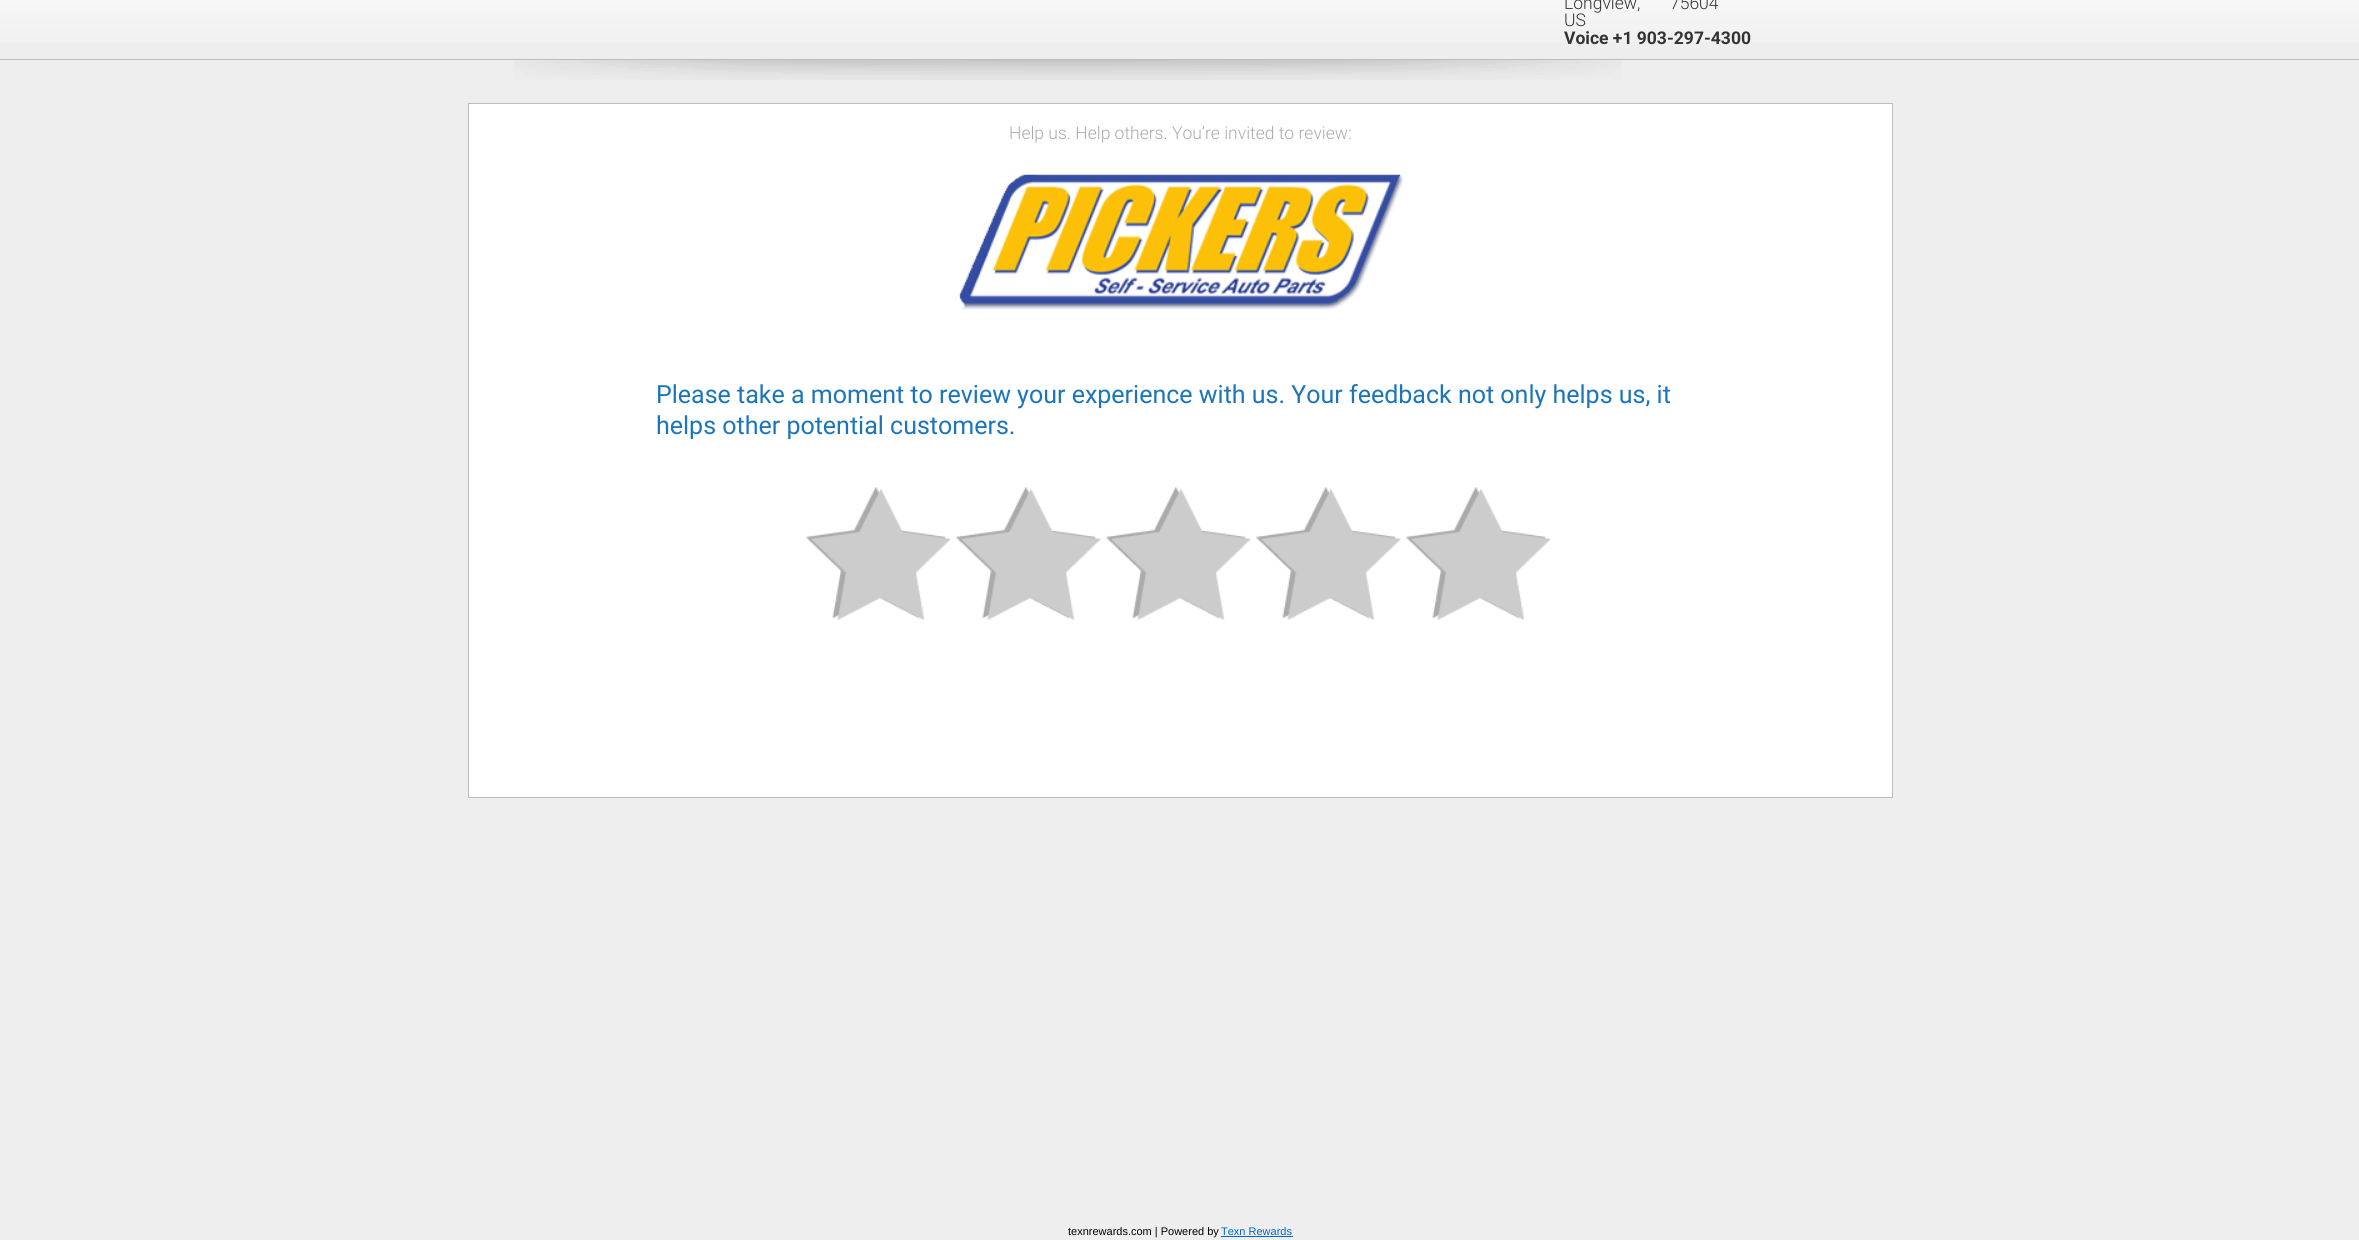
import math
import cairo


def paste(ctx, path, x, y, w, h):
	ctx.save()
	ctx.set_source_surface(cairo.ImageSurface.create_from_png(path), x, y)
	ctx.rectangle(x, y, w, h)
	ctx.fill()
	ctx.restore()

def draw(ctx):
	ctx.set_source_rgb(0.933, 0.933, 0.933)
	ctx.paint()
	gradient = cairo.LinearGradient(1180, -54, 1180, 59)
	gradient.add_color_stop_rgba(0, 1, 1, 1, 1)
	gradient.add_color_stop_rgba(1, 0.933, 0.933, 0.933, 1)
	ctx.set_source(gradient)
	ctx.rectangle(0, 0, 2359, 42)
	ctx.fill()
	ctx.select_font_face('Roboto Light')
	ctx.set_font_size(17.5)
	ctx.set_source_rgb(0.2, 0.2, 0.2)
	for x, y, s in [
		(1564, 9, 'Longview,'),
		(1670, 9, '75604'),
		(1564, 26, 'US'),
	]:
		ctx.move_to(x, y)
		ctx.show_text(s)
	ctx.select_font_face('Roboto', cairo.FONT_SLANT_NORMAL, cairo.FONT_WEIGHT_BOLD)
	ctx.move_to(1564, 44)
	ctx.show_text('Voice +1 903-297-4300')
	ctx.set_source_rgb(0.733, 0.733, 0.733)
	ctx.rectangle(0, 59, 2359, 1)
	ctx.fill()
	paste(ctx, 'media/1.png', 514, 60, 1107, 20)
	ctx.set_source_rgb(1, 1, 1)
	ctx.rectangle(468.5, 103.5, 1424, 694)
	ctx.fill_preserve()
	ctx.set_source_rgb(0.733, 0.733, 0.733)
	ctx.set_line_width(1)
	ctx.stroke()
	ctx.select_font_face('Roboto Light')
	ctx.set_source_rgb(0.667, 0.667, 0.667)
	ctx.move_to(1009, 139)
	ctx.show_text('Help us. Help others. You’re invited to review:')
	paste(ctx, 'media/2.png', 958, 174, 445, 136)
	ctx.select_font_face('Roboto')
	ctx.set_font_size(25)
	ctx.set_source_rgb(0.106, 0.459, 0.733)
	ctx.move_to(656, 403)
	ctx.show_text('Please take a moment to review your experience with us. Your feedback not only helps us, it')
	ctx.move_to(656, 434)
	ctx.show_text('helps other potential customers.')
	paste(ctx, 'media/3.png', 806, 487, 145, 133)
	paste(ctx, 'media/4.png', 956, 487, 145, 133)
	paste(ctx, 'media/5.png', 1106, 487, 145, 133)
	paste(ctx, 'media/6.png', 1256, 487, 145, 133)
	paste(ctx, 'media/7.png', 1406, 487, 145, 133)
	ctx.select_font_face('Liberation Sans')
	ctx.set_font_size(11)
	ctx.set_source_rgb(0, 0, 0)
	ctx.move_to(1068, 1235)
	ctx.show_text('texnrewards.com | Powered by')
	ctx.set_source_rgb(0, 0.4, 0.8)
	ctx.move_to(1221, 1235)
	ctx.show_text('Texn Rewards')
	ctx.rectangle(1221, 1236, 72, 1)
	ctx.fill()


surface = cairo.ImageSurface(cairo.FORMAT_RGB24, 2359, 1240)
ctx = cairo.Context(surface)
options = cairo.FontOptions()
options.set_hint_metrics(cairo.HINT_METRICS_OFF)
options.set_hint_style(cairo.HINT_STYLE_NONE)
ctx.set_font_options(options)
ctx.set_miter_limit(4)
draw(ctx)
surface.write_to_png('image.png')
